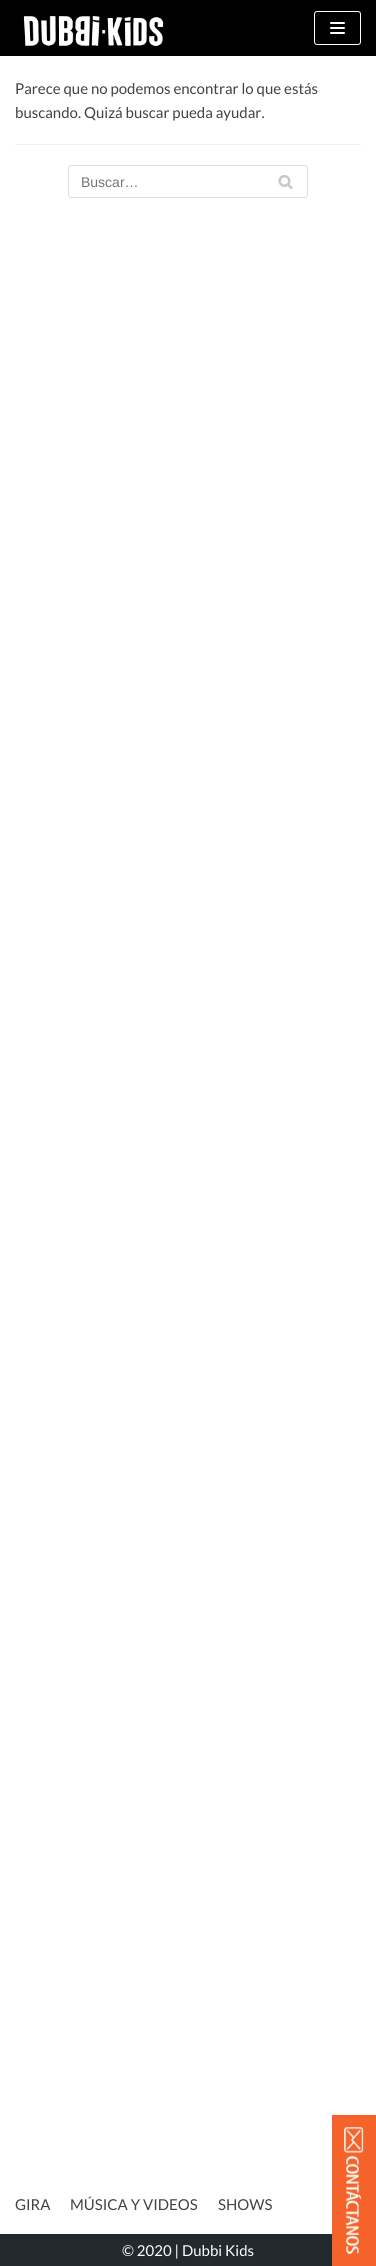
import math
import cairo


def round_path(ctx, x, y, w, h, r):
	ctx.new_sub_path()
	for i, (u, v) in enumerate([(x + w - r, y + h - r), (x + r, y + h - r), (x + r, y + r), (x + w - r, y + r)]):
		ctx.arc(u, v, r, i * math.pi / 2, (i + 1) * math.pi / 2)
	ctx.close_path()

def paste(ctx, path, x, y, w, h):
	ctx.save()
	ctx.set_source_surface(cairo.ImageSurface.create_from_png(path), x, y)
	ctx.rectangle(x, y, w, h)
	ctx.fill()
	ctx.restore()

def draw(ctx):
	ctx.set_source_rgb(1, 1, 1)
	ctx.paint()
	ctx.set_source_rgb(0, 0, 0)
	ctx.rectangle(0, 0, 376, 56)
	ctx.fill()
	paste(ctx, 'media/1.png', 23, 16, 141, 30)
	round_path(ctx, 314.5, 11.5, 46, 33, 2.5)
	ctx.set_source_rgb(1, 1, 1)
	ctx.set_line_width(1)
	ctx.stroke()
	round_path(ctx, 330, 22, 15, 2, 1)
	ctx.fill()
	round_path(ctx, 330, 27, 15, 2, 1)
	ctx.fill()
	round_path(ctx, 330, 32, 15, 2, 1)
	ctx.fill()
	ctx.select_font_face('Lato')
	ctx.set_font_size(15)
	ctx.set_source_rgb(0.251, 0.259, 0.282)
	ctx.move_to(15, 94)
	ctx.show_text('Parece que no podemos encontrar lo que estás')
	ctx.move_to(15, 118)
	ctx.show_text('buscando. Quizá buscar pueda ayudar.')
	ctx.set_source_rgb(0.941, 0.941, 0.941)
	ctx.rectangle(15, 144, 346, 1)
	ctx.fill()
	round_path(ctx, 68.5, 165.5, 239, 32, 2.5)
	ctx.set_source_rgb(0.867, 0.867, 0.867)
	ctx.stroke()
	paste(ctx, 'media/2.png', 278, 175, 15, 14)
	ctx.select_font_face('Liberation Sans')
	ctx.set_font_size(14)
	ctx.set_source_rgb(0.459, 0.459, 0.459)
	ctx.move_to(81, 187)
	ctx.show_text('Buscar…')
	paste(ctx, 'media/3.png', 278, 175, 15, 14)
	ctx.select_font_face('Lato')
	ctx.set_font_size(15)
	ctx.set_source_rgb(0.251, 0.259, 0.282)
	for x, y, s in [
		(15, 2210, 'GIRA'),
		(70, 2210, 'MÚSICA Y VIDEOS'),
		(218, 2210, 'SHOWS'),
	]:
		ctx.move_to(x, y)
		ctx.show_text(s)
	ctx.set_source_rgb(0.141, 0.161, 0.18)
	ctx.rectangle(0, 2234, 332, 32)
	ctx.fill()
	ctx.set_source_rgb(1, 1, 1)
	ctx.move_to(122, 2256)
	ctx.show_text('© 2020 | Dubbi Kids')
	ctx.set_source_rgb(0.961, 0.388, 0.165)
	ctx.rectangle(332, 2115, 44, 151)
	ctx.fill()
	paste(ctx, 'media/4.png', 344, 2127, 20, 128)


surface = cairo.ImageSurface(cairo.FORMAT_RGB24, 376, 2266)
ctx = cairo.Context(surface)
options = cairo.FontOptions()
options.set_hint_metrics(cairo.HINT_METRICS_OFF)
options.set_hint_style(cairo.HINT_STYLE_NONE)
ctx.set_font_options(options)
ctx.set_miter_limit(4)
draw(ctx)
surface.write_to_png('image.png')
